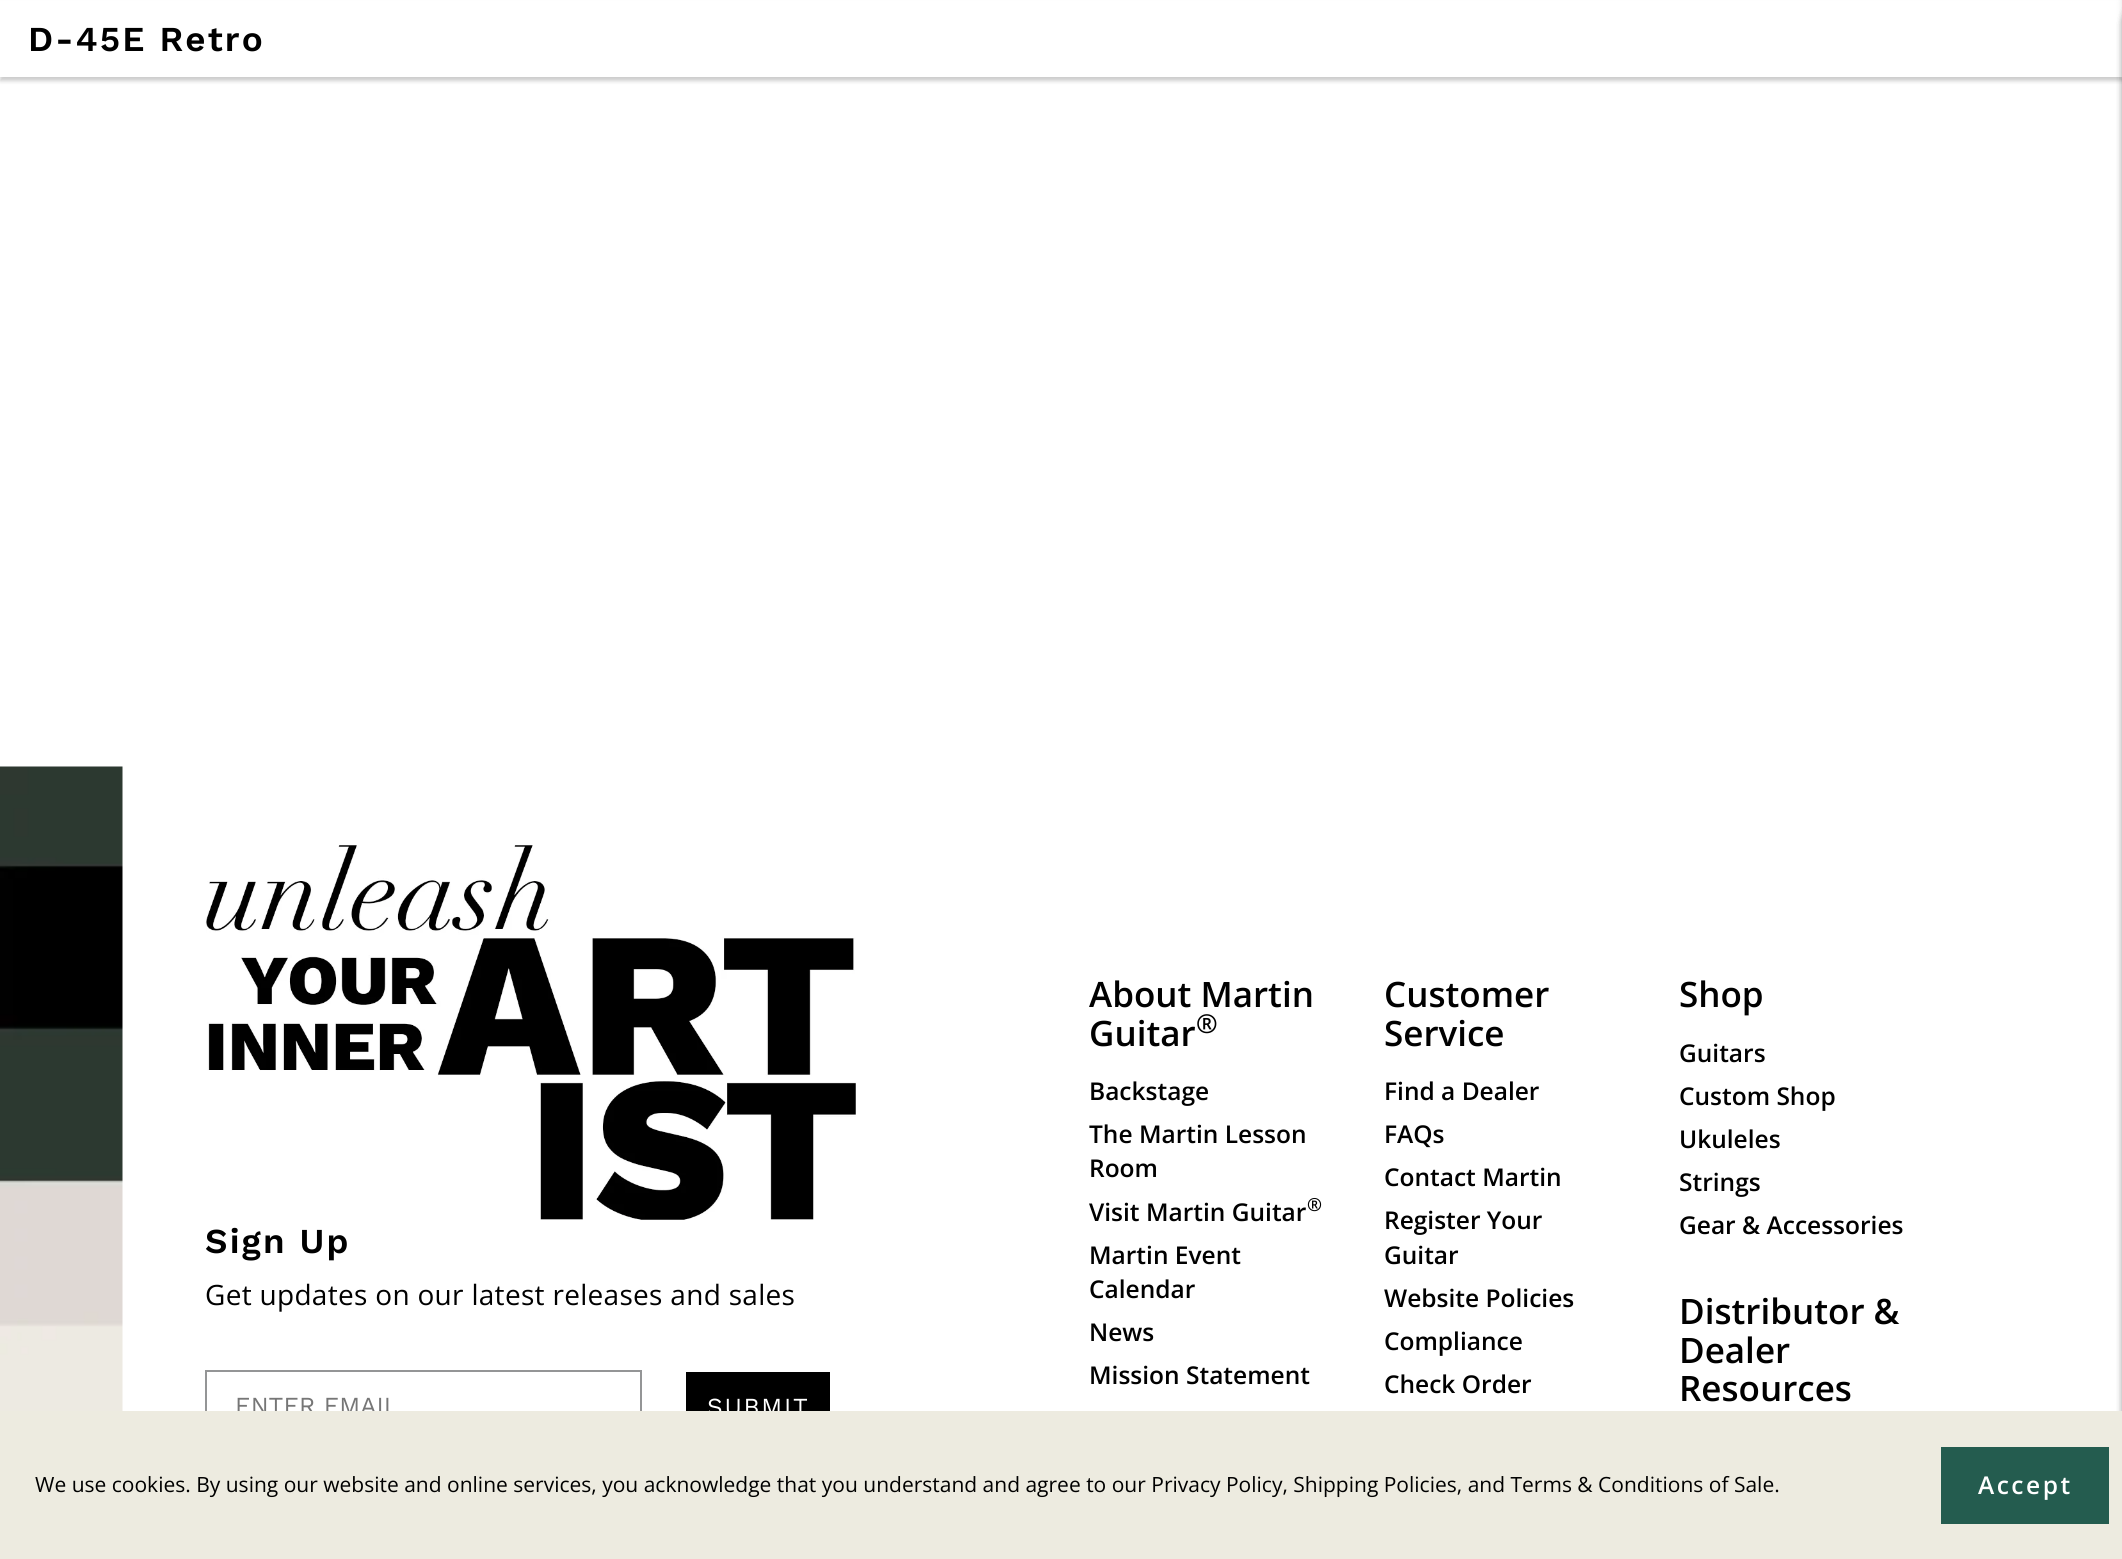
import math
import cairo


def write_spaced(ctx, x, y, s, letter, word):
	ctx.move_to(x, y)
	for ch in s:
		ctx.show_text(ch)
		ctx.rel_move_to(letter + word * (ch == ' '), 0)

def round_path(ctx, x, y, w, h, r):
	ctx.new_sub_path()
	for i, (u, v) in enumerate([(x + w - r, y + h - r), (x + r, y + h - r), (x + r, y + r), (x + w - r, y + r)]):
		ctx.arc(u, v, r, i * math.pi / 2, (i + 1) * math.pi / 2)
	ctx.close_path()

def blur_box(ctx, x, y, w, h, r, blur, alpha):
	ctx.push_group_with_content(cairo.CONTENT_ALPHA)
	ctx.set_operator(cairo.OPERATOR_SOURCE)
	for i in range(15, -16, -2):
		e = blur * i / 6
		if min(w, h) + 2 * e > 0:
			ctx.set_source_rgba(0, 0, 0, alpha * math.erfc((i - 1) / 8.5) / 2)
			round_path(ctx, x - e, y - e, w + 2 * e, h + 2 * e, max(0, min(r + e + blur * .6, min(w, h) / 2 + e)))
			ctx.fill()
	ctx.mask(ctx.pop_group())

def paste(ctx, path, x, y, w, h):
	ctx.save()
	ctx.set_source_surface(cairo.ImageSurface.create_from_png(path), x, y)
	ctx.rectangle(x, y, w, h)
	ctx.fill()
	ctx.restore()

def draw(ctx):
	ctx.set_source_rgb(1, 1, 1)
	ctx.paint()
	ctx.set_source_rgb(0, 0, 0)
	blur_box(ctx, 0, 4, 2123, 77, 0, 2, 0.2)
	ctx.set_source_rgb(1, 1, 1)
	ctx.rectangle(0, 1, 2122, 76)
	ctx.fill()
	ctx.select_font_face('Work Sans SemiBold')
	ctx.set_font_size(35)
	ctx.set_source_rgb(0, 0, 0)
	write_spaced(ctx, 28, 51, 'D-45E Retro', 2.1, 0)
	ctx.set_source_rgb(0, 0, 0)
	blur_box(ctx, 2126, 0, 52, 1559, 42, 4.5, 0.3)
	blur_box(ctx, 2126, 0, 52, 1559, 42, 4.5, 0.3)
	blur_box(ctx, 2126, 0, 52, 1559, 42, 4.5, 0.3)
	blur_box(ctx, 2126, 0, 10, 1559, 0, 4.5, 0.3)
	paste(ctx, 'media/1.png', 0, 766, 123, 645)
	paste(ctx, 'media/2.png', 205, 845, 651, 375)
	ctx.set_source_rgb(0, 0, 0)
	write_spaced(ctx, 205, 1253, 'Sign Up', 2.1, 0)
	ctx.select_font_face('Open Sans')
	ctx.set_font_size(28)
	write_spaced(ctx, 205, 1305, 'Get updates on our latest releases and sales', 0.3, 0)
	ctx.rectangle(206, 1371, 435, 68)
	ctx.set_source_rgb(0.58, 0.584, 0.588)
	ctx.stroke()
	ctx.select_font_face('Work Sans')
	ctx.set_font_size(24.5)
	ctx.set_source_rgb(0.463, 0.463, 0.463)
	ctx.move_to(235, 1414)
	ctx.show_text('ENTER EMAIL')
	ctx.set_source_rgb(0, 0, 0)
	ctx.rectangle(686, 1372, 144, 39)
	ctx.fill()
	ctx.set_source_rgb(1, 1, 1)
	write_spaced(ctx, 707, 1415, 'SUBMIT', 1.75, 0)
	ctx.select_font_face('Open Sans SemiBold')
	ctx.set_font_size(35)
	ctx.set_source_rgb(0, 0, 0)
	ctx.move_to(1089, 1007)
	ctx.show_text('About Martin')
	ctx.move_to(1089, 1046)
	ctx.show_text('Guitar')
	ctx.set_font_size(26)
	ctx.move_to(1196, 1033)
	ctx.show_text('®')
	ctx.set_font_size(24.5)
	for x, y, s in [
		(1089, 1100, 'Backstage'),
		(1089, 1143, 'The Martin Lesson'),
		(1089, 1177, 'Room'),
		(1089, 1221, 'Visit Martin Guitar'),
	]:
		ctx.move_to(x, y)
		ctx.show_text(s)
	ctx.set_font_size(18)
	ctx.move_to(1307, 1211)
	ctx.show_text('®')
	ctx.set_font_size(24.5)
	for x, y, s in [
		(1089, 1264, 'Martin Event'),
		(1089, 1298, 'Calendar'),
		(1089, 1341, 'News'),
		(1089, 1384, 'Mission Statement'),
	]:
		ctx.move_to(x, y)
		ctx.show_text(s)
	ctx.set_font_size(35)
	ctx.move_to(1384, 1007)
	ctx.show_text('Customer')
	ctx.move_to(1384, 1046)
	ctx.show_text('Service')
	ctx.set_font_size(24.5)
	for x, y, s in [
		(1384, 1100, 'Find a Dealer'),
		(1384, 1143, 'FAQs'),
		(1384, 1186, 'Contact Martin'),
		(1384, 1229, 'Register Your'),
		(1384, 1264, 'Guitar'),
		(1384, 1307, 'Website Policies'),
		(1384, 1350, 'Compliance'),
		(1384, 1393, 'Check Order'),
	]:
		ctx.move_to(x, y)
		ctx.show_text(s)
	ctx.set_font_size(35)
	ctx.move_to(1679, 1007)
	ctx.show_text('Shop')
	ctx.set_font_size(24.5)
	for x, y, s in [
		(1679, 1062, 'Guitars'),
		(1679, 1105, 'Custom Shop'),
		(1679, 1148, 'Ukuleles'),
		(1679, 1191, 'Strings'),
		(1679, 1234, 'Gear & Accessories'),
	]:
		ctx.move_to(x, y)
		ctx.show_text(s)
	ctx.set_font_size(35)
	for x, y, s in [
		(1679, 1324, 'Distributor &'),
		(1679, 1363, 'Dealer'),
		(1679, 1401, 'Resources'),
	]:
		ctx.move_to(x, y)
		ctx.show_text(s)
	ctx.set_source_rgb(0.929, 0.918, 0.878)
	ctx.rectangle(0, 1411, 2122, 148)
	ctx.fill()
	ctx.select_font_face('Open Sans')
	ctx.set_font_size(21)
	ctx.set_source_rgb(0, 0, 0)
	ctx.move_to(35, 1492)
	ctx.show_text('We use cookies. By using our website and online services, you acknowledge that you understand and agree to our Privacy Policy, Shipping Policies, and Terms & Conditions of Sale.')
	ctx.set_source_rgb(0.141, 0.361, 0.31)
	ctx.rectangle(1941, 1447, 168, 77)
	ctx.fill()
	ctx.select_font_face('Open Sans SemiBold')
	ctx.set_font_size(24.5)
	ctx.set_source_rgb(1, 1, 1)
	write_spaced(ctx, 1978, 1494, 'Accept', 2.5, 0)


surface = cairo.ImageSurface(cairo.FORMAT_RGB24, 2122, 1559)
ctx = cairo.Context(surface)
options = cairo.FontOptions()
options.set_hint_metrics(cairo.HINT_METRICS_OFF)
options.set_hint_style(cairo.HINT_STYLE_NONE)
ctx.set_font_options(options)
ctx.set_miter_limit(4)
draw(ctx)
surface.write_to_png('image.png')
